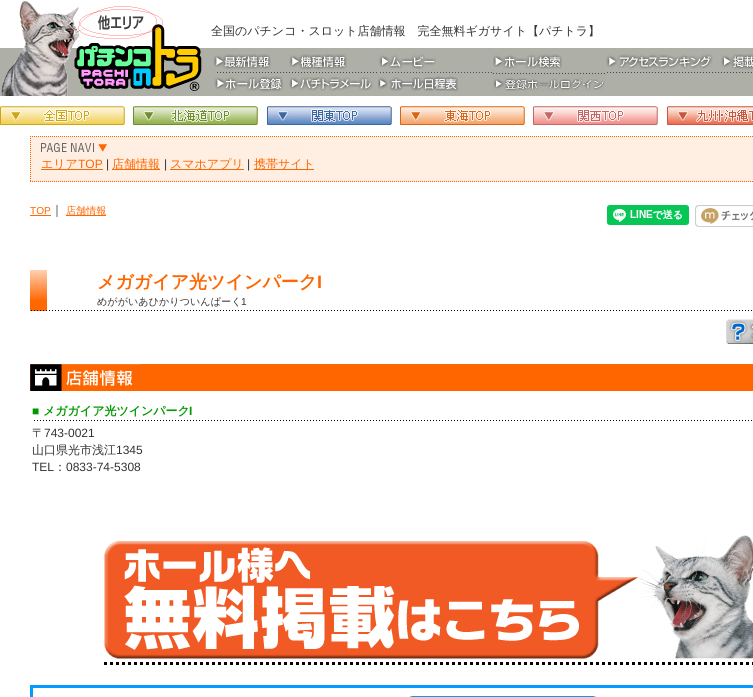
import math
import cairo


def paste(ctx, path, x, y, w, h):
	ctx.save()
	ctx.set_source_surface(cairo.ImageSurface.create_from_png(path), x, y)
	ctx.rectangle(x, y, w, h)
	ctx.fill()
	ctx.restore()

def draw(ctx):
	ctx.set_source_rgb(1, 1, 1)
	ctx.paint()
	ctx.set_source_rgb(0.682, 0.69, 0.655)
	ctx.rectangle(0, 48, 753, 48)
	ctx.fill()
	paste(ctx, 'media/1.png', 283, 72, 469, 1)
	paste(ctx, 'media/2.png', 1, 1, 201, 95)
	ctx.select_font_face('WenQuanYi Zen Hei Medium')
	ctx.set_font_size(12)
	ctx.set_source_rgb(0.2, 0.2, 0.2)
	ctx.move_to(211, 35)
	ctx.show_text('全国のパチンコ・スロット店舗情報　完全無料ギガサイト【パチトラ】')
	paste(ctx, 'media/3.png', 213, 54, 58, 16)
	paste(ctx, 'media/4.png', 289, 54, 58, 16)
	paste(ctx, 'media/5.png', 379, 54, 57, 15)
	paste(ctx, 'media/6.png', 493, 54, 69, 15)
	paste(ctx, 'media/7.png', 606, 54, 107, 15)
	paste(ctx, 'media/8.png', 721, 54, 32, 16)
	paste(ctx, 'media/9.png', 214, 72, 69, 20)
	paste(ctx, 'media/10.png', 289, 77, 84, 14)
	paste(ctx, 'media/11.png', 378, 72, 114, 20)
	paste(ctx, 'media/12.png', 493, 72, 112, 19)
	paste(ctx, 'media/13.png', 0, 106, 125, 19)
	paste(ctx, 'media/14.png', 133, 106, 125, 19)
	paste(ctx, 'media/15.png', 267, 106, 125, 19)
	paste(ctx, 'media/16.png', 400, 106, 125, 19)
	paste(ctx, 'media/17.png', 533, 106, 125, 19)
	paste(ctx, 'media/18.png', 667, 106, 86, 19)
	ctx.set_source_rgb(1, 0.933, 0.886)
	ctx.rectangle(30, 136, 723, 46)
	ctx.fill()
	ctx.new_path()
	ctx.move_to(30, 136.5)
	ctx.line_to(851, 136.5)
	ctx.set_source_rgb(1, 0.4, 0)
	ctx.set_line_width(1)
	ctx.set_dash([1, 1])
	ctx.stroke()
	ctx.new_path()
	ctx.move_to(30, 181.5)
	ctx.line_to(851, 181.5)
	ctx.stroke()
	ctx.new_path()
	ctx.move_to(30.5, 136)
	ctx.line_to(30.5, 182)
	ctx.stroke()
	paste(ctx, 'media/19.png', 41, 143, 66, 9)
	ctx.rectangle(41, 169, 62, 1)
	ctx.fill()
	ctx.move_to(41, 168)
	ctx.show_text('エリア')
	ctx.select_font_face('Liberation Sans')
	ctx.move_to(78, 168)
	ctx.show_text('TOP')
	ctx.set_source_rgb(0.2, 0.2, 0.2)
	ctx.move_to(106, 168)
	ctx.show_text('|')
	ctx.set_source_rgb(1, 0.4, 0)
	ctx.rectangle(112, 169, 48, 1)
	ctx.fill()
	ctx.select_font_face('WenQuanYi Zen Hei Medium')
	ctx.move_to(112, 168)
	ctx.show_text('店舗情報')
	ctx.select_font_face('Liberation Sans')
	ctx.set_source_rgb(0.2, 0.2, 0.2)
	ctx.move_to(164, 168)
	ctx.show_text('|')
	ctx.set_source_rgb(1, 0.4, 0)
	ctx.rectangle(170, 169, 74, 1)
	ctx.fill()
	ctx.select_font_face('WenQuanYi Zen Hei Medium')
	ctx.move_to(170, 168)
	ctx.show_text('スマホアプリ')
	ctx.select_font_face('Liberation Sans')
	ctx.set_source_rgb(0.2, 0.2, 0.2)
	ctx.move_to(247, 168)
	ctx.show_text('|')
	ctx.set_source_rgb(1, 0.4, 0)
	ctx.rectangle(254, 169, 60, 1)
	ctx.fill()
	ctx.select_font_face('WenQuanYi Zen Hei Medium')
	ctx.move_to(254, 168)
	ctx.show_text('携帯サイト')
	ctx.select_font_face('Liberation Sans')
	ctx.set_font_size(10.1)
	ctx.move_to(30, 214)
	ctx.show_text('TOP')
	ctx.rectangle(30, 215, 21, 1)
	ctx.fill()
	ctx.select_font_face('WenQuanYi Zen Hei Medium')
	ctx.set_font_size(12)
	ctx.set_source_rgb(0.2, 0.2, 0.2)
	ctx.move_to(51, 214)
	ctx.show_text('｜')
	ctx.set_source_rgb(1, 0.4, 0)
	ctx.rectangle(66, 215, 40, 1)
	ctx.fill()
	ctx.set_font_size(10.1)
	ctx.move_to(66, 214)
	ctx.show_text('店舗情報')
	paste(ctx, 'media/20.png', 607, 205, 82, 20)
	paste(ctx, 'media/21.png', 695, 205, 58, 22)
	paste(ctx, 'media/22.png', 30, 270, 17, 41)
	ctx.select_font_face('WenQuanYi Zen Hei', cairo.FONT_SLANT_NORMAL, cairo.FONT_WEIGHT_BOLD)
	ctx.set_font_size(18)
	ctx.move_to(97, 288)
	ctx.show_text('メガガイア光ツインパーク')
	ctx.select_font_face('Liberation Sans', cairo.FONT_SLANT_NORMAL, cairo.FONT_WEIGHT_BOLD)
	ctx.move_to(317, 288)
	ctx.show_text('I')
	ctx.select_font_face('WenQuanYi Zen Hei Medium')
	ctx.set_font_size(10.1)
	ctx.set_source_rgb(0.2, 0.2, 0.2)
	ctx.move_to(97, 305)
	ctx.show_text('めががいあひかりついんぱーく')
	ctx.select_font_face('Liberation Sans')
	ctx.move_to(241, 305)
	ctx.show_text('1')
	paste(ctx, 'media/23.png', 31, 310, 721, 1)
	paste(ctx, 'media/24.png', 726, 319, 27, 25)
	ctx.set_source_rgb(1, 0.4, 0)
	ctx.rectangle(140, 364, 613, 27)
	ctx.fill()
	paste(ctx, 'media/25.png', 30, 364, 110, 27)
	paste(ctx, 'media/26.png', 34, 420, 718, 1)
	ctx.select_font_face('Liberation Sans', cairo.FONT_SLANT_NORMAL, cairo.FONT_WEIGHT_BOLD)
	ctx.set_font_size(12)
	ctx.set_source_rgb(0, 0.6, 0)
	ctx.move_to(32, 415)
	ctx.show_text('■')
	ctx.select_font_face('WenQuanYi Zen Hei', cairo.FONT_SLANT_NORMAL, cairo.FONT_WEIGHT_BOLD)
	ctx.move_to(43, 415)
	ctx.show_text('メガガイア光ツインパーク')
	ctx.select_font_face('Liberation Sans', cairo.FONT_SLANT_NORMAL, cairo.FONT_WEIGHT_BOLD)
	ctx.move_to(189, 415)
	ctx.show_text('I')
	ctx.select_font_face('WenQuanYi Zen Hei Medium')
	ctx.set_source_rgb(0.2, 0.2, 0.2)
	ctx.move_to(32, 437)
	ctx.show_text('〒')
	ctx.select_font_face('Liberation Sans')
	ctx.move_to(44, 437)
	ctx.show_text('743-0021')
	ctx.select_font_face('WenQuanYi Zen Hei Medium')
	ctx.move_to(32, 454)
	ctx.show_text('山口県光市浅江')
	ctx.select_font_face('Liberation Sans')
	ctx.move_to(116, 454)
	ctx.show_text('1345')
	ctx.move_to(32, 471)
	ctx.show_text('TEL')
	ctx.select_font_face('WenQuanYi Zen Hei Medium')
	ctx.move_to(54, 471)
	ctx.show_text('：')
	ctx.select_font_face('Liberation Sans')
	ctx.move_to(66, 471)
	ctx.show_text('0833-74-5308')
	paste(ctx, 'media/27.png', 104, 535, 649, 124)
	ctx.new_path()
	ctx.move_to(104, 663.5)
	ctx.line_to(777, 663.5)
	ctx.set_source_rgb(0, 0, 0)
	ctx.set_line_width(3)
	ctx.set_dash([3, 3])
	ctx.stroke()
	ctx.rectangle(31.5, 686.5, 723, 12)
	ctx.set_source_rgb(0, 0.608, 1)
	ctx.set_dash([])
	ctx.stroke()
	paste(ctx, 'media/28.png', 409, 696, 188, 1)


surface = cairo.ImageSurface(cairo.FORMAT_RGB24, 753, 697)
ctx = cairo.Context(surface)
options = cairo.FontOptions()
options.set_hint_metrics(cairo.HINT_METRICS_OFF)
options.set_hint_style(cairo.HINT_STYLE_NONE)
ctx.set_font_options(options)
ctx.set_miter_limit(4)
draw(ctx)
surface.write_to_png('image.png')
